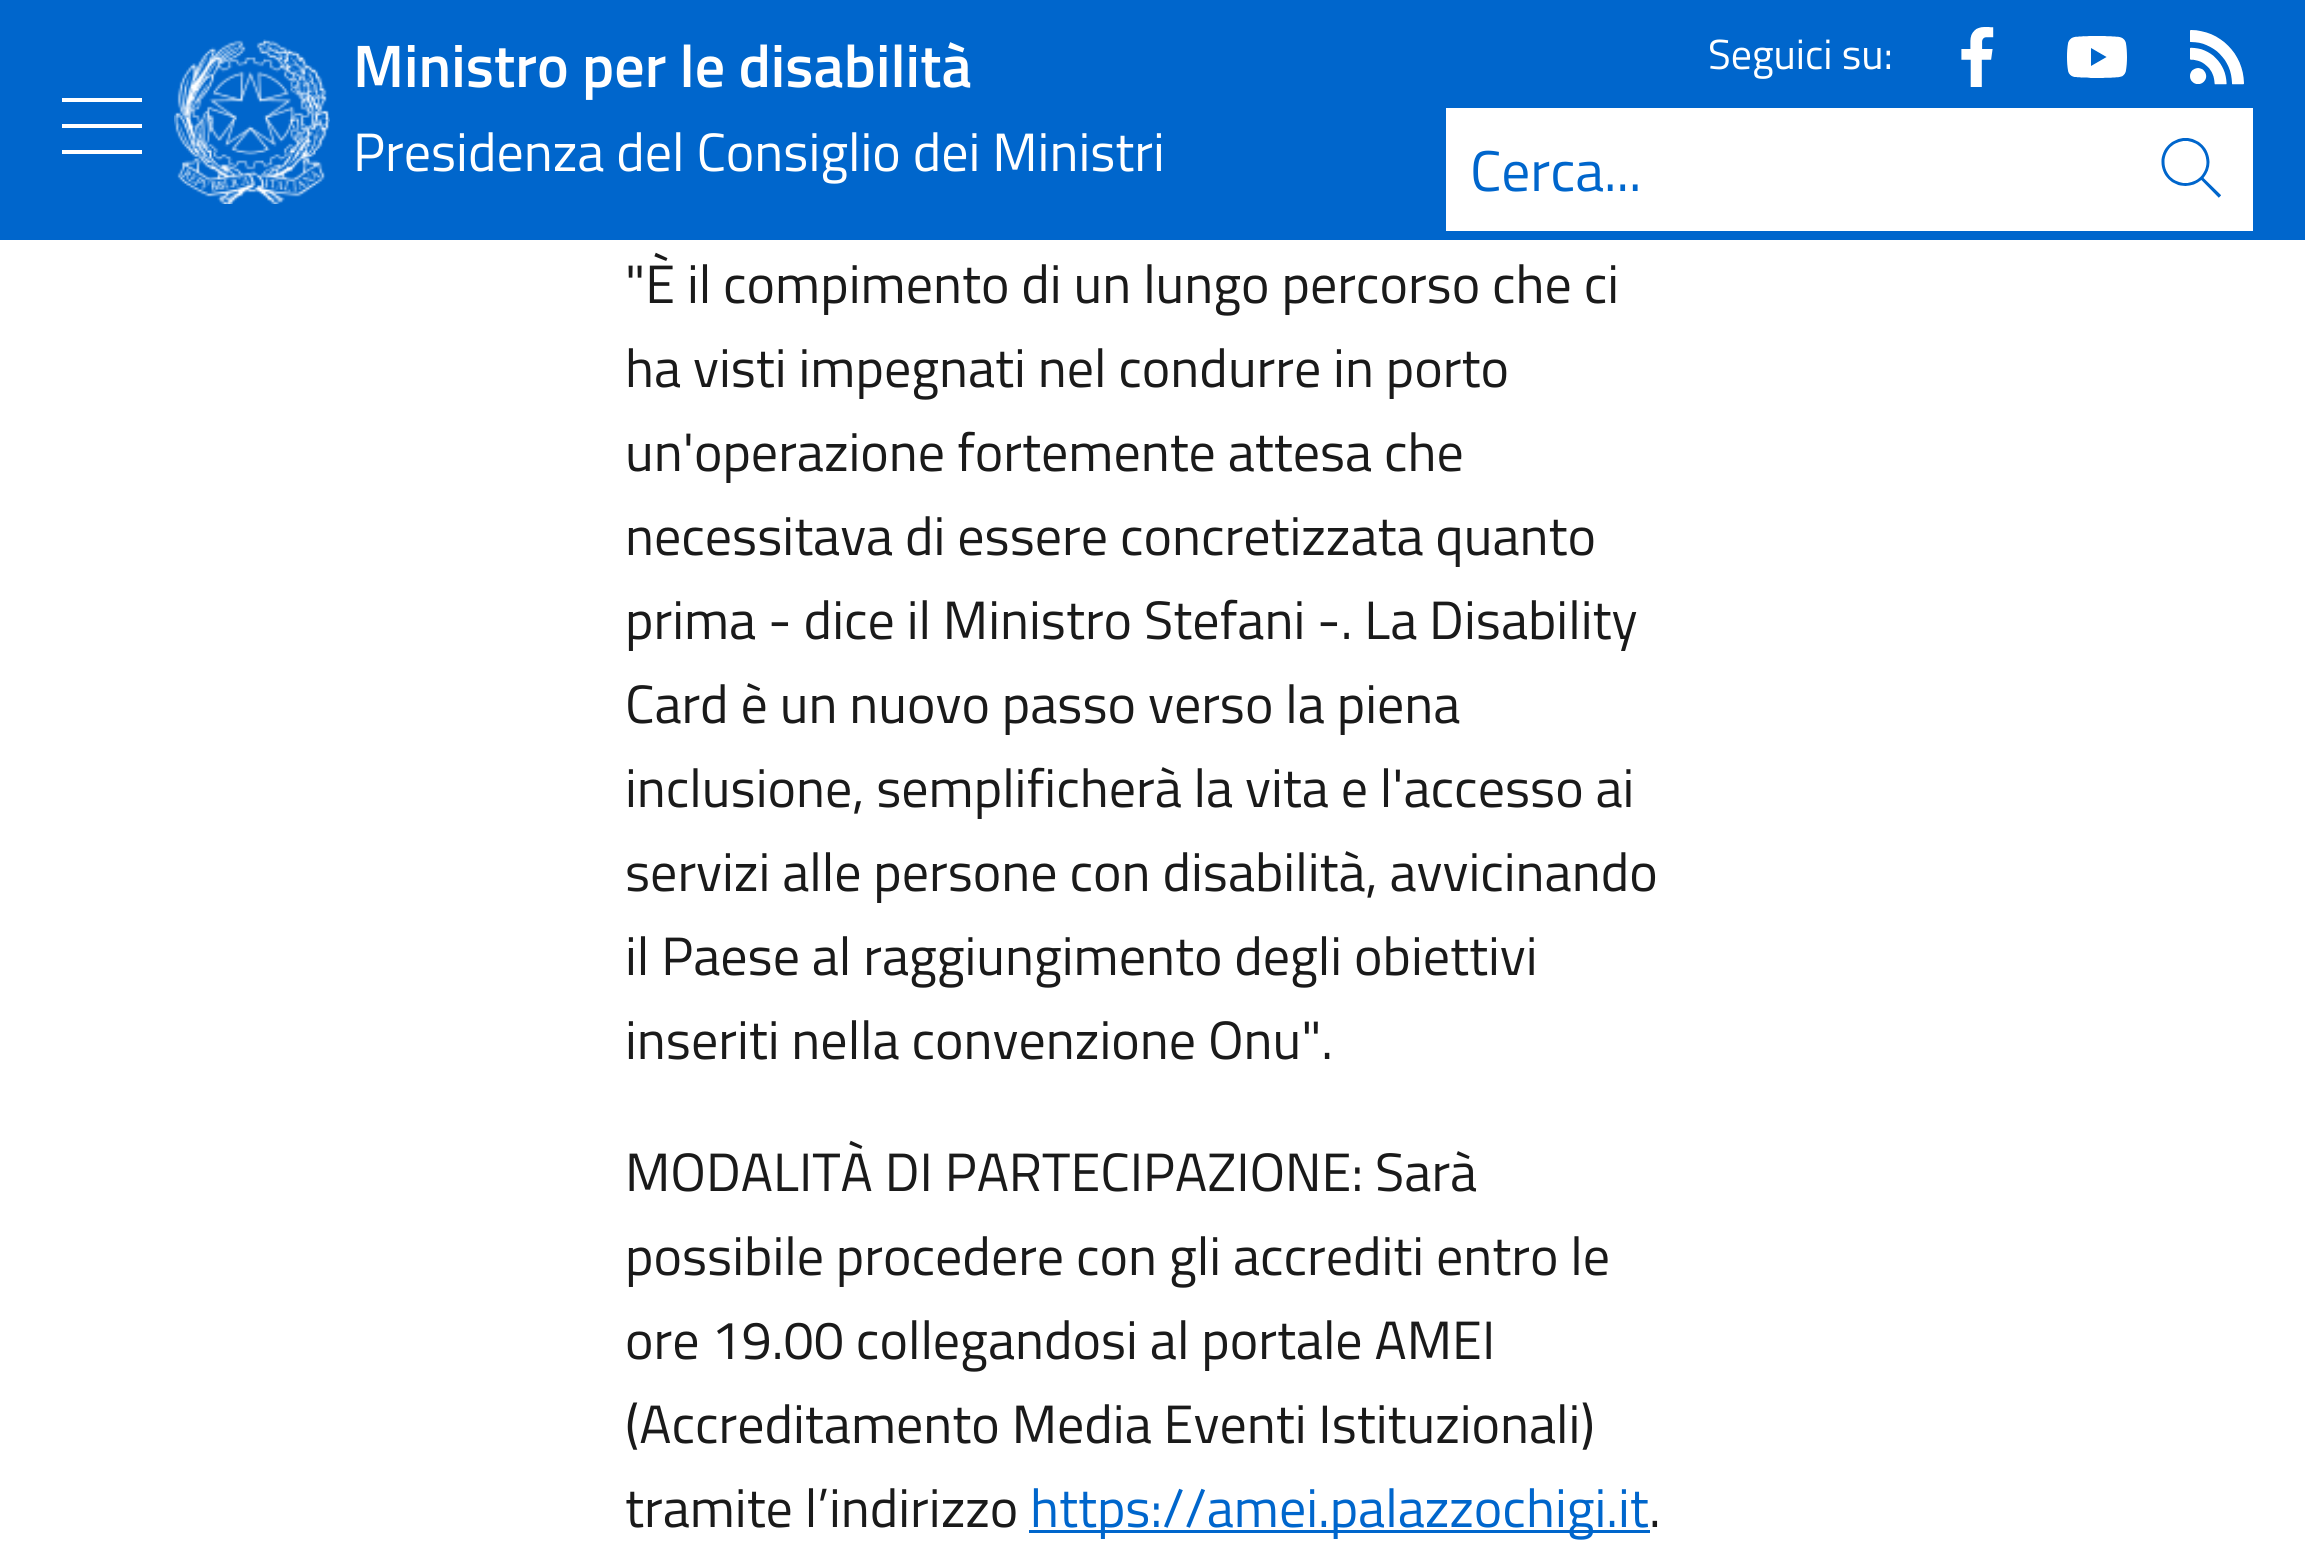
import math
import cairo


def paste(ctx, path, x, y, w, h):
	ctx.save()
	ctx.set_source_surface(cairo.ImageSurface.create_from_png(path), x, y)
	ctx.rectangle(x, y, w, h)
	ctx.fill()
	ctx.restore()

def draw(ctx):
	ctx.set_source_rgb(1, 1, 1)
	ctx.paint()
	ctx.set_source_rgb(0, 0.4, 0.8)
	ctx.rectangle(0, 0, 2305, 240)
	ctx.fill()
	paste(ctx, 'media/1.png', 62, 98, 80, 56)
	paste(ctx, 'media/2.png', 174, 39, 156, 165)
	ctx.select_font_face('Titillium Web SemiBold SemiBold')
	ctx.set_font_size(60)
	ctx.set_source_rgb(1, 1, 1)
	ctx.move_to(353, 87)
	ctx.show_text('Ministro per le disabilità')
	ctx.select_font_face('Titillium Web')
	ctx.set_font_size(54)
	ctx.move_to(353, 171)
	ctx.show_text('Presidenza del Consiglio dei Ministri')
	ctx.set_font_size(42)
	ctx.move_to(1708, 69)
	ctx.show_text('Seguici su:')
	paste(ctx, 'media/3.png', 1961, 27, 33, 60)
	paste(ctx, 'media/4.png', 2067, 36, 60, 42)
	paste(ctx, 'media/5.png', 2190, 30, 54, 55)
	ctx.rectangle(1446, 108, 807, 123)
	ctx.fill()
	ctx.set_font_size(57.5)
	ctx.set_source_rgb(0, 0.4, 0.8)
	ctx.move_to(1470, 191)
	ctx.show_text('Cerca...')
	paste(ctx, 'media/6.png', 2161, 138, 60, 60)
	ctx.set_font_size(54)
	ctx.set_source_rgb(0.102, 0.102, 0.102)
	for x, y, s in [
		(625, 303, '"È il compimento di un lungo percorso che ci'),
		(625, 387, 'ha visti impegnati nel condurre in porto'),
		(625, 471, 'un\'operazione fortemente attesa che'),
		(625, 555, 'necessitava di essere concretizzata quanto'),
		(625, 639, 'prima - dice il Ministro Stefani -. La Disability'),
		(625, 723, 'Card è un nuovo passo verso la piena'),
		(625, 807, 'inclusione, semplificherà la vita e l\'accesso ai'),
		(625, 891, 'servizi alle persone con disabilità, avvicinando'),
		(625, 975, 'il Paese al raggiungimento degli obiettivi'),
		(625, 1059, 'inseriti nella convenzione Onu".'),
		(625, 1191, 'MODALITÀ DI PARTECIPAZIONE: Sarà'),
		(625, 1275, 'possibile procedere con gli accrediti entro le'),
		(625, 1359, 'ore 19.00 collegandosi al portale AMEI'),
		(625, 1443, '(Accreditamento Media Eventi Istituzionali)'),
		(625, 1527, 'tramite l’indirizzo'),
	]:
		ctx.move_to(x, y)
		ctx.show_text(s)
	ctx.set_source_rgb(0, 0.4, 0.8)
	ctx.rectangle(1029, 1530, 621, 3)
	ctx.fill()
	ctx.move_to(1030, 1527)
	ctx.show_text('https://amei.palazzochigi.it')
	ctx.set_source_rgb(0.102, 0.102, 0.102)
	ctx.move_to(1649, 1527)
	ctx.show_text('.')


surface = cairo.ImageSurface(cairo.FORMAT_RGB24, 2305, 1551)
ctx = cairo.Context(surface)
options = cairo.FontOptions()
options.set_hint_metrics(cairo.HINT_METRICS_OFF)
options.set_hint_style(cairo.HINT_STYLE_NONE)
ctx.set_font_options(options)
ctx.set_miter_limit(4)
draw(ctx)
surface.write_to_png('image.png')
